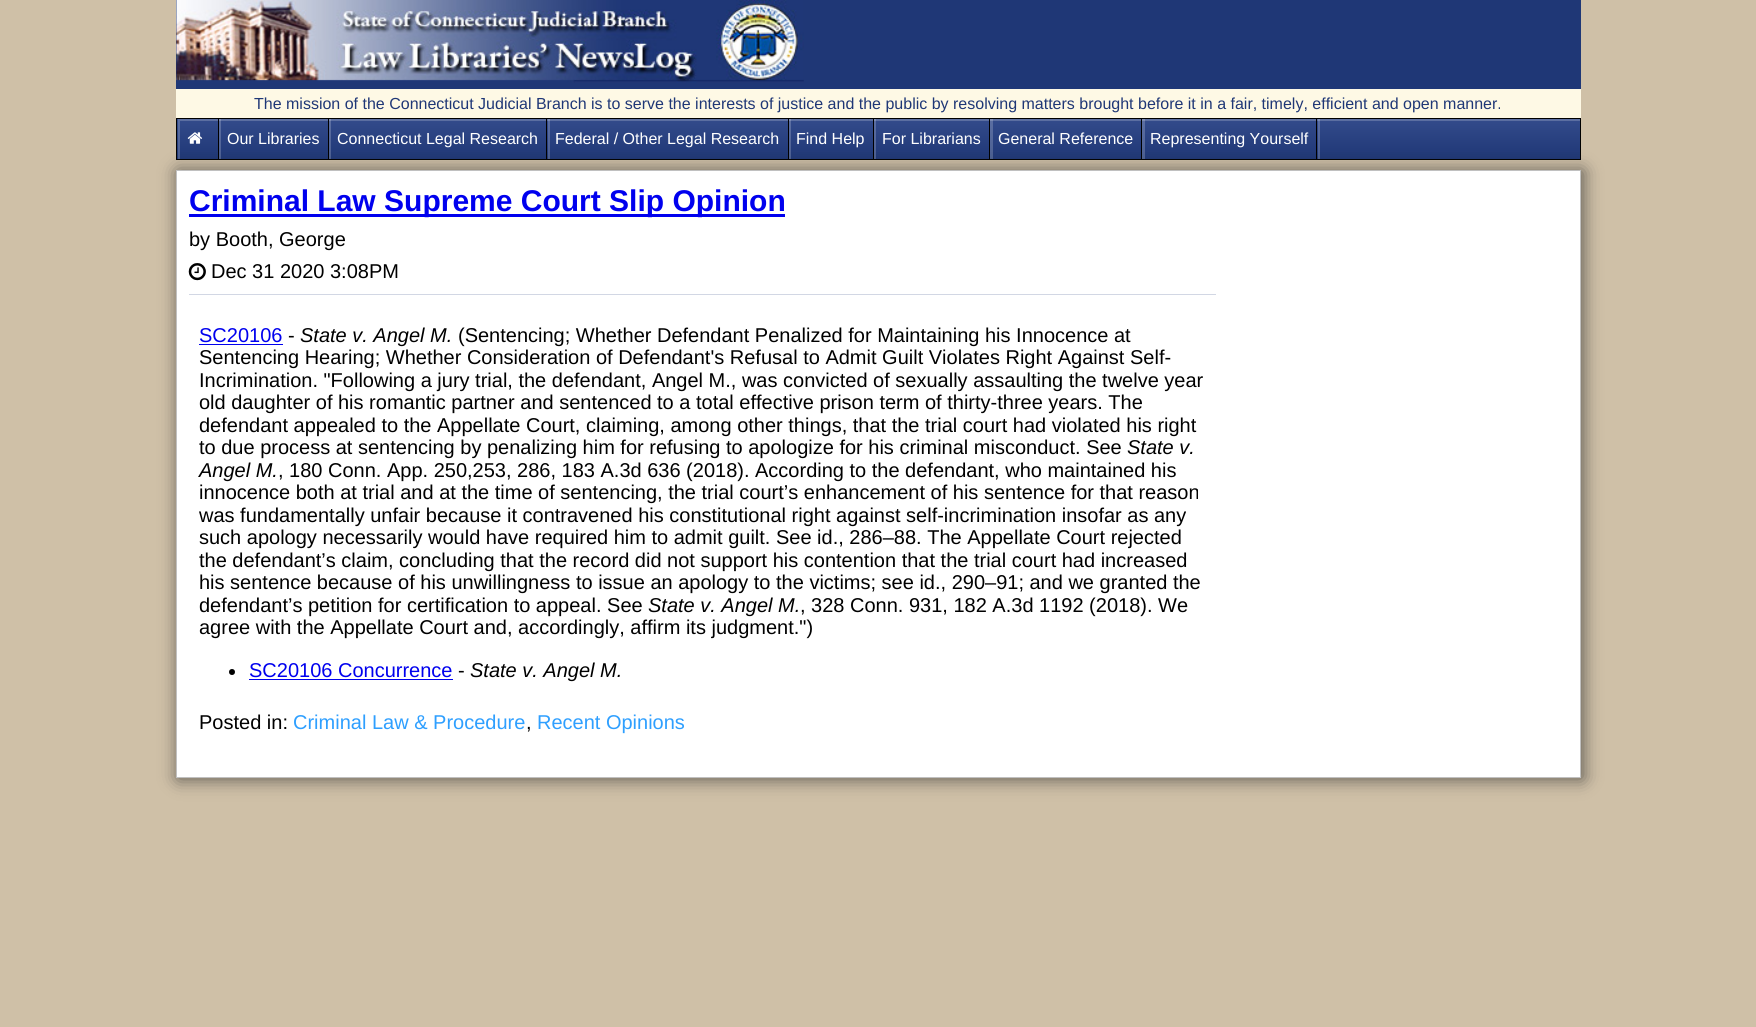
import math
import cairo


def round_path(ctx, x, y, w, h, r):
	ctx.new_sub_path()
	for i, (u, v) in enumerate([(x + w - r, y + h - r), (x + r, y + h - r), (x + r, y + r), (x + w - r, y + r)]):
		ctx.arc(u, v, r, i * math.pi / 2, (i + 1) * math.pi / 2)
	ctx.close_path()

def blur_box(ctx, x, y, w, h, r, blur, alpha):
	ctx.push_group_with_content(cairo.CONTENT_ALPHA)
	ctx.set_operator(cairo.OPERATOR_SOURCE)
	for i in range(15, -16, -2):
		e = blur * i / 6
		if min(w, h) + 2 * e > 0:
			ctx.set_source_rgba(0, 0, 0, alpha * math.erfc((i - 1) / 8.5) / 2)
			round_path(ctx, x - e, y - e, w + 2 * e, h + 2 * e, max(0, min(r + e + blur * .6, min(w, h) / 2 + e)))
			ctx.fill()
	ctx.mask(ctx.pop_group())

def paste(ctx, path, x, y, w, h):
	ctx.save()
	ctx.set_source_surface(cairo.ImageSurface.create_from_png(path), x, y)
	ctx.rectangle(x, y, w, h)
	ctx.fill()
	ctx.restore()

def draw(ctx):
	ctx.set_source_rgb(0.812, 0.753, 0.655)
	ctx.paint()
	ctx.set_source_rgb(0.122, 0.216, 0.463)
	ctx.rectangle(176, 0, 1405, 89)
	ctx.fill()
	paste(ctx, 'media/1.png', 176, 0, 628, 83)
	ctx.set_source_rgb(0.996, 0.973, 0.898)
	ctx.rectangle(176, 89, 1405, 29)
	ctx.fill()
	ctx.select_font_face('Liberation Sans')
	ctx.set_font_size(16)
	ctx.set_source_rgb(0.122, 0.216, 0.463)
	ctx.move_to(254, 109)
	ctx.show_text('The mission of the Connecticut Judicial Branch is to serve the interests of justice and the public by resolving matters brought before it in a fair, timely, efficient and open manner.')
	gradient = cairo.LinearGradient(879, 119, 879, 159)
	gradient.add_color_stop_rgba(0, 0.2, 0.294, 0.545, 1)
	gradient.add_color_stop_rgba(1, 0.122, 0.216, 0.463, 1)
	ctx.set_source(gradient)
	ctx.rectangle(177, 119, 1403, 40)
	ctx.fill()
	ctx.save()
	ctx.rectangle(178, 119, 1402, 40)
	ctx.clip()
	ctx.set_source_rgba(1, 1, 1, 0.2)
	ctx.set_fill_rule(cairo.FILL_RULE_EVEN_ODD)
	ctx.new_path()
	ctx.move_to(54, -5)
	ctx.line_to(1704, -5)
	ctx.line_to(1704, 282)
	ctx.line_to(54, 282)
	ctx.close_path()
	ctx.move_to(180, 121)
	ctx.line_to(1582, 121)
	ctx.line_to(1582, 161)
	ctx.line_to(180, 161)
	ctx.close_path()
	ctx.fill()
	ctx.restore()
	ctx.rectangle(176.5, 118.5, 1404, 41)
	ctx.set_source_rgb(0, 0, 0)
	ctx.set_line_width(1)
	ctx.stroke()
	ctx.set_source_rgba(1, 1, 1, 0.2)
	ctx.new_path()
	ctx.move_to(180, 159)
	ctx.line_to(221, 159)
	ctx.line_to(221, 119)
	ctx.line_to(219, 119)
	ctx.line_to(219, 159)
	ctx.close_path()
	ctx.fill()
	ctx.set_source_rgb(0, 0, 0)
	ctx.rectangle(218, 119, 1, 40)
	ctx.fill()
	paste(ctx, 'media/2.png', 187, 132, 16, 12)
	ctx.set_source_rgba(1, 1, 1, 0.2)
	ctx.new_path()
	ctx.move_to(221, 159)
	ctx.line_to(331, 159)
	ctx.line_to(331, 119)
	ctx.line_to(329, 119)
	ctx.line_to(329, 159)
	ctx.close_path()
	ctx.fill()
	ctx.set_source_rgb(0, 0, 0)
	ctx.rectangle(328, 119, 1, 40)
	ctx.fill()
	ctx.set_source_rgb(1, 1, 1)
	ctx.move_to(227, 144)
	ctx.show_text('Our Libraries')
	ctx.set_source_rgba(1, 1, 1, 0.2)
	ctx.new_path()
	ctx.move_to(331, 159)
	ctx.line_to(550, 159)
	ctx.line_to(550, 119)
	ctx.line_to(548, 119)
	ctx.line_to(548, 159)
	ctx.close_path()
	ctx.fill()
	ctx.set_source_rgb(0, 0, 0)
	ctx.rectangle(546, 119, 1, 40)
	ctx.fill()
	ctx.set_source_rgb(1, 1, 1)
	ctx.move_to(337, 144)
	ctx.show_text('Connecticut Legal Research')
	ctx.set_source_rgba(1, 1, 1, 0.2)
	ctx.new_path()
	ctx.move_to(550, 159)
	ctx.line_to(791, 159)
	ctx.line_to(791, 119)
	ctx.line_to(789, 119)
	ctx.line_to(789, 159)
	ctx.close_path()
	ctx.fill()
	ctx.set_source_rgb(0, 0, 0)
	ctx.rectangle(788, 119, 1, 40)
	ctx.fill()
	ctx.set_source_rgb(1, 1, 1)
	ctx.move_to(555, 144)
	ctx.show_text('Federal / Other Legal Research')
	ctx.set_source_rgba(1, 1, 1, 0.2)
	ctx.new_path()
	ctx.move_to(791, 159)
	ctx.line_to(876, 159)
	ctx.line_to(876, 119)
	ctx.line_to(874, 119)
	ctx.line_to(874, 159)
	ctx.close_path()
	ctx.fill()
	ctx.set_source_rgb(0, 0, 0)
	ctx.rectangle(873, 119, 1, 40)
	ctx.fill()
	ctx.set_source_rgb(1, 1, 1)
	ctx.move_to(796, 144)
	ctx.show_text('Find Help')
	ctx.set_source_rgba(1, 1, 1, 0.2)
	ctx.new_path()
	ctx.move_to(876, 159)
	ctx.line_to(993, 159)
	ctx.line_to(993, 119)
	ctx.line_to(990, 119)
	ctx.line_to(990, 159)
	ctx.close_path()
	ctx.fill()
	ctx.set_source_rgb(0, 0, 0)
	ctx.rectangle(989, 119, 1, 40)
	ctx.fill()
	ctx.set_source_rgb(1, 1, 1)
	ctx.move_to(882, 144)
	ctx.show_text('For Librarians')
	ctx.set_source_rgba(1, 1, 1, 0.2)
	ctx.new_path()
	ctx.move_to(993, 159)
	ctx.line_to(1145, 159)
	ctx.line_to(1145, 119)
	ctx.line_to(1142, 119)
	ctx.line_to(1142, 159)
	ctx.close_path()
	ctx.fill()
	ctx.set_source_rgb(0, 0, 0)
	ctx.rectangle(1141, 119, 1, 40)
	ctx.fill()
	ctx.set_source_rgb(1, 1, 1)
	ctx.move_to(998, 144)
	ctx.show_text('General Reference')
	ctx.set_source_rgba(1, 1, 1, 0.2)
	ctx.new_path()
	ctx.move_to(1145, 159)
	ctx.line_to(1320, 159)
	ctx.line_to(1320, 119)
	ctx.line_to(1318, 119)
	ctx.line_to(1318, 159)
	ctx.close_path()
	ctx.fill()
	ctx.set_source_rgb(0, 0, 0)
	ctx.rectangle(1316, 119, 1, 40)
	ctx.fill()
	ctx.set_source_rgb(1, 1, 1)
	ctx.move_to(1150, 144)
	ctx.show_text('Representing Yourself')
	ctx.set_source_rgb(0.196, 0.196, 0.196)
	blur_box(ctx, 178, 171, 1405, 608, 0, 9, 0.75)
	ctx.set_source_rgb(1, 1, 1)
	ctx.rectangle(176.5, 170.5, 1404, 607)
	ctx.fill_preserve()
	ctx.set_source_rgb(0.753, 0.753, 0.753)
	ctx.stroke()
	ctx.set_source_rgb(0.824, 0.843, 0.894)
	ctx.rectangle(189, 294, 1027, 1)
	ctx.fill()
	ctx.set_source_rgb(0, 0, 0.933)
	ctx.rectangle(189, 214, 596, 3)
	ctx.fill()
	ctx.select_font_face('Liberation Sans', cairo.FONT_SLANT_NORMAL, cairo.FONT_WEIGHT_BOLD)
	ctx.set_font_size(30)
	ctx.move_to(189, 211)
	ctx.show_text('Criminal Law Supreme Court Slip Opinion')
	ctx.select_font_face('Liberation Sans')
	ctx.set_font_size(20)
	ctx.set_source_rgb(0, 0, 0)
	ctx.move_to(189, 246)
	ctx.show_text('by Booth, George')
	paste(ctx, 'media/3.png', 188, 263, 18, 18)
	ctx.move_to(211, 278)
	ctx.show_text('Dec 31 2020 3:08PM')
	ctx.set_source_rgb(0, 0, 0.933)
	ctx.move_to(199, 342)
	ctx.show_text('SC20106')
	ctx.rectangle(199, 344, 84, 1)
	ctx.fill()
	ctx.set_source_rgb(0, 0, 0)
	ctx.move_to(288, 342)
	ctx.show_text('-')
	ctx.select_font_face('Liberation Sans', cairo.FONT_SLANT_ITALIC)
	ctx.move_to(300, 342)
	ctx.show_text('State v. Angel M.')
	ctx.select_font_face('Liberation Sans')
	for x, y, s in [
		(458, 342, '(Sentencing; Whether Defendant Penalized for Maintaining his Innocence at'),
		(199, 364, 'Sentencing Hearing; Whether Consideration of Defendant\'s Refusal to Admit Guilt Violates Right Against Self-'),
		(199, 387, 'Incrimination. "Following a jury trial, the defendant, Angel M., was convicted of sexually assaulting the twelve year'),
		(199, 409, 'old daughter of his romantic partner and sentenced to a total effective prison term of thirty-three years. The'),
		(199, 432, 'defendant appealed to the Appellate Court, claiming, among other things, that the trial court had violated his right'),
		(199, 454, 'to due process at sentencing by penalizing him for refusing to apologize for his criminal misconduct. See'),
	]:
		ctx.move_to(x, y)
		ctx.show_text(s)
	ctx.select_font_face('Liberation Sans', cairo.FONT_SLANT_ITALIC)
	ctx.move_to(1127, 454)
	ctx.show_text('State v.')
	ctx.move_to(199, 477)
	ctx.show_text('Angel M.')
	ctx.select_font_face('Liberation Sans')
	for x, y, s in [
		(278, 477, ', 180 Conn. App. 250,253, 286, 183 A.3d 636 (2018). According to the defendant, who maintained his'),
		(199, 499, 'innocence both at trial and at the time of sentencing, the trial court’s enhancement of his sentence for that reason'),
		(199, 522, 'was fundamentally unfair because it contravened his constitutional right against self-incrimination insofar as any'),
		(199, 544, 'such apology necessarily would have required him to admit guilt. See id., 286–88. The Appellate Court rejected'),
		(199, 567, 'the defendant’s claim, concluding that the record did not support his contention that the trial court had increased'),
		(199, 589, 'his sentence because of his unwillingness to issue an apology to the victims; see id., 290–91; and we granted the'),
		(199, 612, 'defendant’s petition for certification to appeal. See'),
	]:
		ctx.move_to(x, y)
		ctx.show_text(s)
	ctx.select_font_face('Liberation Sans', cairo.FONT_SLANT_ITALIC)
	ctx.move_to(648, 612)
	ctx.show_text('State v. Angel M.')
	ctx.select_font_face('Liberation Sans')
	ctx.move_to(800, 612)
	ctx.show_text(', 328 Conn. 931, 182 A.3d 1192 (2018). We')
	ctx.move_to(199, 634)
	ctx.show_text('agree with the Appellate Court and, accordingly, affirm its judgment.")')
	ctx.new_path()
	ctx.arc(232, 672, 3, 0, 2 * math.pi)
	ctx.fill()
	ctx.set_source_rgb(0, 0, 0.933)
	ctx.move_to(249, 677)
	ctx.show_text('SC20106 Concurrence')
	ctx.rectangle(249, 679, 204, 1)
	ctx.fill()
	ctx.set_source_rgb(0, 0, 0)
	ctx.move_to(458, 677)
	ctx.show_text('-')
	ctx.select_font_face('Liberation Sans', cairo.FONT_SLANT_ITALIC)
	ctx.move_to(470, 677)
	ctx.show_text('State v. Angel M.')
	ctx.select_font_face('Liberation Sans')
	ctx.move_to(199, 729)
	ctx.show_text('Posted in:')
	ctx.set_source_rgb(0.18, 0.624, 1)
	ctx.move_to(293, 729)
	ctx.show_text('Criminal Law & Procedure')
	ctx.set_source_rgb(0, 0, 0)
	ctx.move_to(526, 729)
	ctx.show_text(',')
	ctx.set_source_rgb(0.18, 0.624, 1)
	ctx.move_to(537, 729)
	ctx.show_text('Recent Opinions')


surface = cairo.ImageSurface(cairo.FORMAT_RGB24, 1756, 1027)
ctx = cairo.Context(surface)
options = cairo.FontOptions()
options.set_hint_metrics(cairo.HINT_METRICS_OFF)
options.set_hint_style(cairo.HINT_STYLE_NONE)
ctx.set_font_options(options)
ctx.set_miter_limit(4)
draw(ctx)
surface.write_to_png('image.png')
